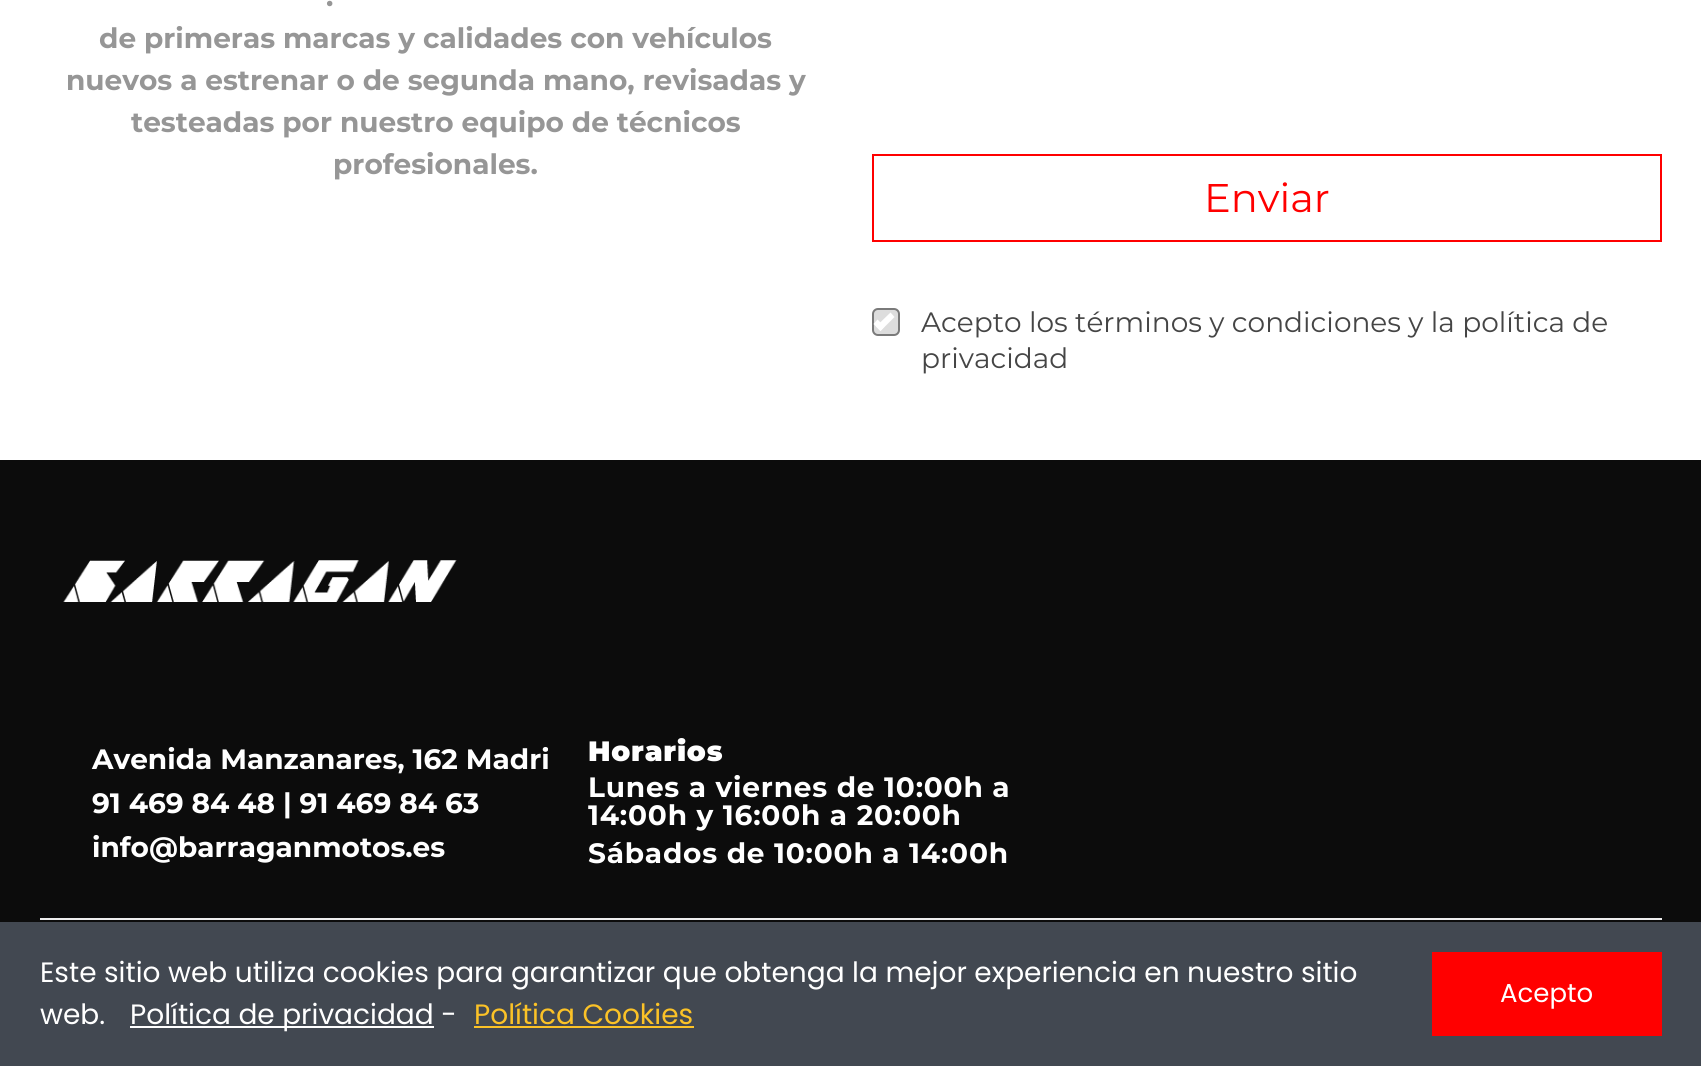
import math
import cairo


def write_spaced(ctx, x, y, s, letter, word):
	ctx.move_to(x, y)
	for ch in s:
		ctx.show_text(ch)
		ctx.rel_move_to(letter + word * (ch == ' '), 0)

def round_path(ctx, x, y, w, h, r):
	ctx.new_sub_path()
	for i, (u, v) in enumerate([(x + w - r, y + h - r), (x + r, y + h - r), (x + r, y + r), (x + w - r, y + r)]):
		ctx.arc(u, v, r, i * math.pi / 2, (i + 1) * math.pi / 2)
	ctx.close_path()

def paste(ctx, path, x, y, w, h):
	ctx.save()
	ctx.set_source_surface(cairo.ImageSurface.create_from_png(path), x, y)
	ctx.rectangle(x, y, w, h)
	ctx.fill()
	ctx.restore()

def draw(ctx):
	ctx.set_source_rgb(1, 1, 1)
	ctx.paint()
	ctx.select_font_face('Montserrat', cairo.FONT_SLANT_NORMAL, cairo.FONT_WEIGHT_BOLD)
	ctx.set_font_size(28)
	ctx.set_source_rgb(0.588, 0.588, 0.588)
	for x, y, s in [
		(326, 6, '.'),
		(99, 48, 'de primeras marcas y calidades con vehículos'),
		(66, 90, 'nuevos a estrenar o de segunda mano, revisadas y'),
		(131, 132, 'testeadas por nuestro equipo de técnicos'),
		(333, 174, 'profesionales.'),
	]:
		ctx.move_to(x, y)
		ctx.show_text(s)
	ctx.rectangle(873, 155, 788, 86)
	ctx.set_source_rgb(1, 0, 0)
	ctx.stroke()
	ctx.select_font_face('Montserrat')
	ctx.set_font_size(40)
	ctx.move_to(1204, 212)
	ctx.show_text('Enviar')
	ctx.set_source_rgb(0.867, 0.867, 0.867)
	round_path(ctx, 873, 309, 26, 26, 5)
	ctx.fill_preserve()
	ctx.set_source_rgb(0.478, 0.478, 0.478)
	ctx.stroke()
	ctx.set_source_rgb(1, 1, 1)
	ctx.new_path()
	ctx.move_to(890.5, 312.5)
	ctx.line_to(894.5, 317)
	ctx.line_to(880.5, 331)
	ctx.line_to(876, 326.5)
	ctx.close_path()
	ctx.fill()
	ctx.new_path()
	ctx.move_to(877.5, 319.5)
	ctx.line_to(884.5, 326.5)
	ctx.line_to(880.5, 331)
	ctx.line_to(873.5, 324)
	ctx.close_path()
	ctx.fill()
	ctx.set_font_size(28)
	ctx.set_source_rgb(0.271, 0.271, 0.271)
	ctx.move_to(921, 332)
	ctx.show_text('Acepto los términos y condiciones y la política de')
	ctx.move_to(921, 368)
	ctx.show_text('privacidad')
	ctx.set_source_rgb(0.047, 0.047, 0.047)
	ctx.rectangle(0, 460, 1701, 462)
	ctx.fill()
	paste(ctx, 'media/1.png', 63, 560, 394, 42)
	ctx.select_font_face('Montserrat', cairo.FONT_SLANT_NORMAL, cairo.FONT_WEIGHT_BOLD)
	ctx.set_source_rgb(1, 1, 1)
	for x, y, s in [
		(92, 769, 'Avenida Manzanares, 162 Madri'),
		(92, 813, '91 469 84 48 | 91 469 84 63'),
		(92, 857, 'info@barraganmotos.es'),
	]:
		ctx.move_to(x, y)
		ctx.show_text(s)
	ctx.select_font_face('Montserrat Black')
	write_spaced(ctx, 588, 761, 'Horarios', 0.8, 0)
	ctx.select_font_face('Montserrat', cairo.FONT_SLANT_NORMAL, cairo.FONT_WEIGHT_BOLD)
	for x, y, s in [
		(588, 797, 'Lunes a viernes de 10:00h a'),
		(588, 825, '14:00h y 16:00h a 20:00h'),
		(588, 863, 'Sábados de 10:00h a 14:00h'),
	]:
		write_spaced(ctx, x, y, s, 0.8, 0)
	ctx.set_source_rgb(0.933, 0.933, 0.937)
	ctx.rectangle(40, 918, 1622, 2)
	ctx.fill()
	ctx.set_source_rgb(0.259, 0.282, 0.318)
	ctx.rectangle(0, 922, 1701, 144)
	ctx.fill()
	ctx.select_font_face('Poppins')
	ctx.set_source_rgb(1, 1, 1)
	ctx.move_to(40, 982)
	ctx.show_text('Este sitio web utiliza cookies para garantizar que obtenga la mejor experiencia en nuestro sitio')
	ctx.move_to(40, 1024)
	ctx.show_text('web.')
	ctx.rectangle(130, 1026, 304, 2)
	ctx.fill()
	ctx.move_to(130, 1024)
	ctx.show_text('Política de privacidad -')
	ctx.set_source_rgb(0.984, 0.761, 0.153)
	ctx.move_to(474, 1024)
	ctx.show_text('Política Cookies')
	ctx.rectangle(474, 1026, 220, 2)
	ctx.fill()
	ctx.set_source_rgb(1, 0, 0)
	ctx.rectangle(1432, 952, 230, 84)
	ctx.fill()
	ctx.set_font_size(26)
	ctx.set_source_rgb(1, 1, 1)
	ctx.move_to(1500, 1002)
	ctx.show_text('Acepto')


surface = cairo.ImageSurface(cairo.FORMAT_RGB24, 1701, 1066)
ctx = cairo.Context(surface)
options = cairo.FontOptions()
options.set_hint_metrics(cairo.HINT_METRICS_OFF)
options.set_hint_style(cairo.HINT_STYLE_NONE)
ctx.set_font_options(options)
ctx.set_miter_limit(4)
draw(ctx)
surface.write_to_png('image.png')
